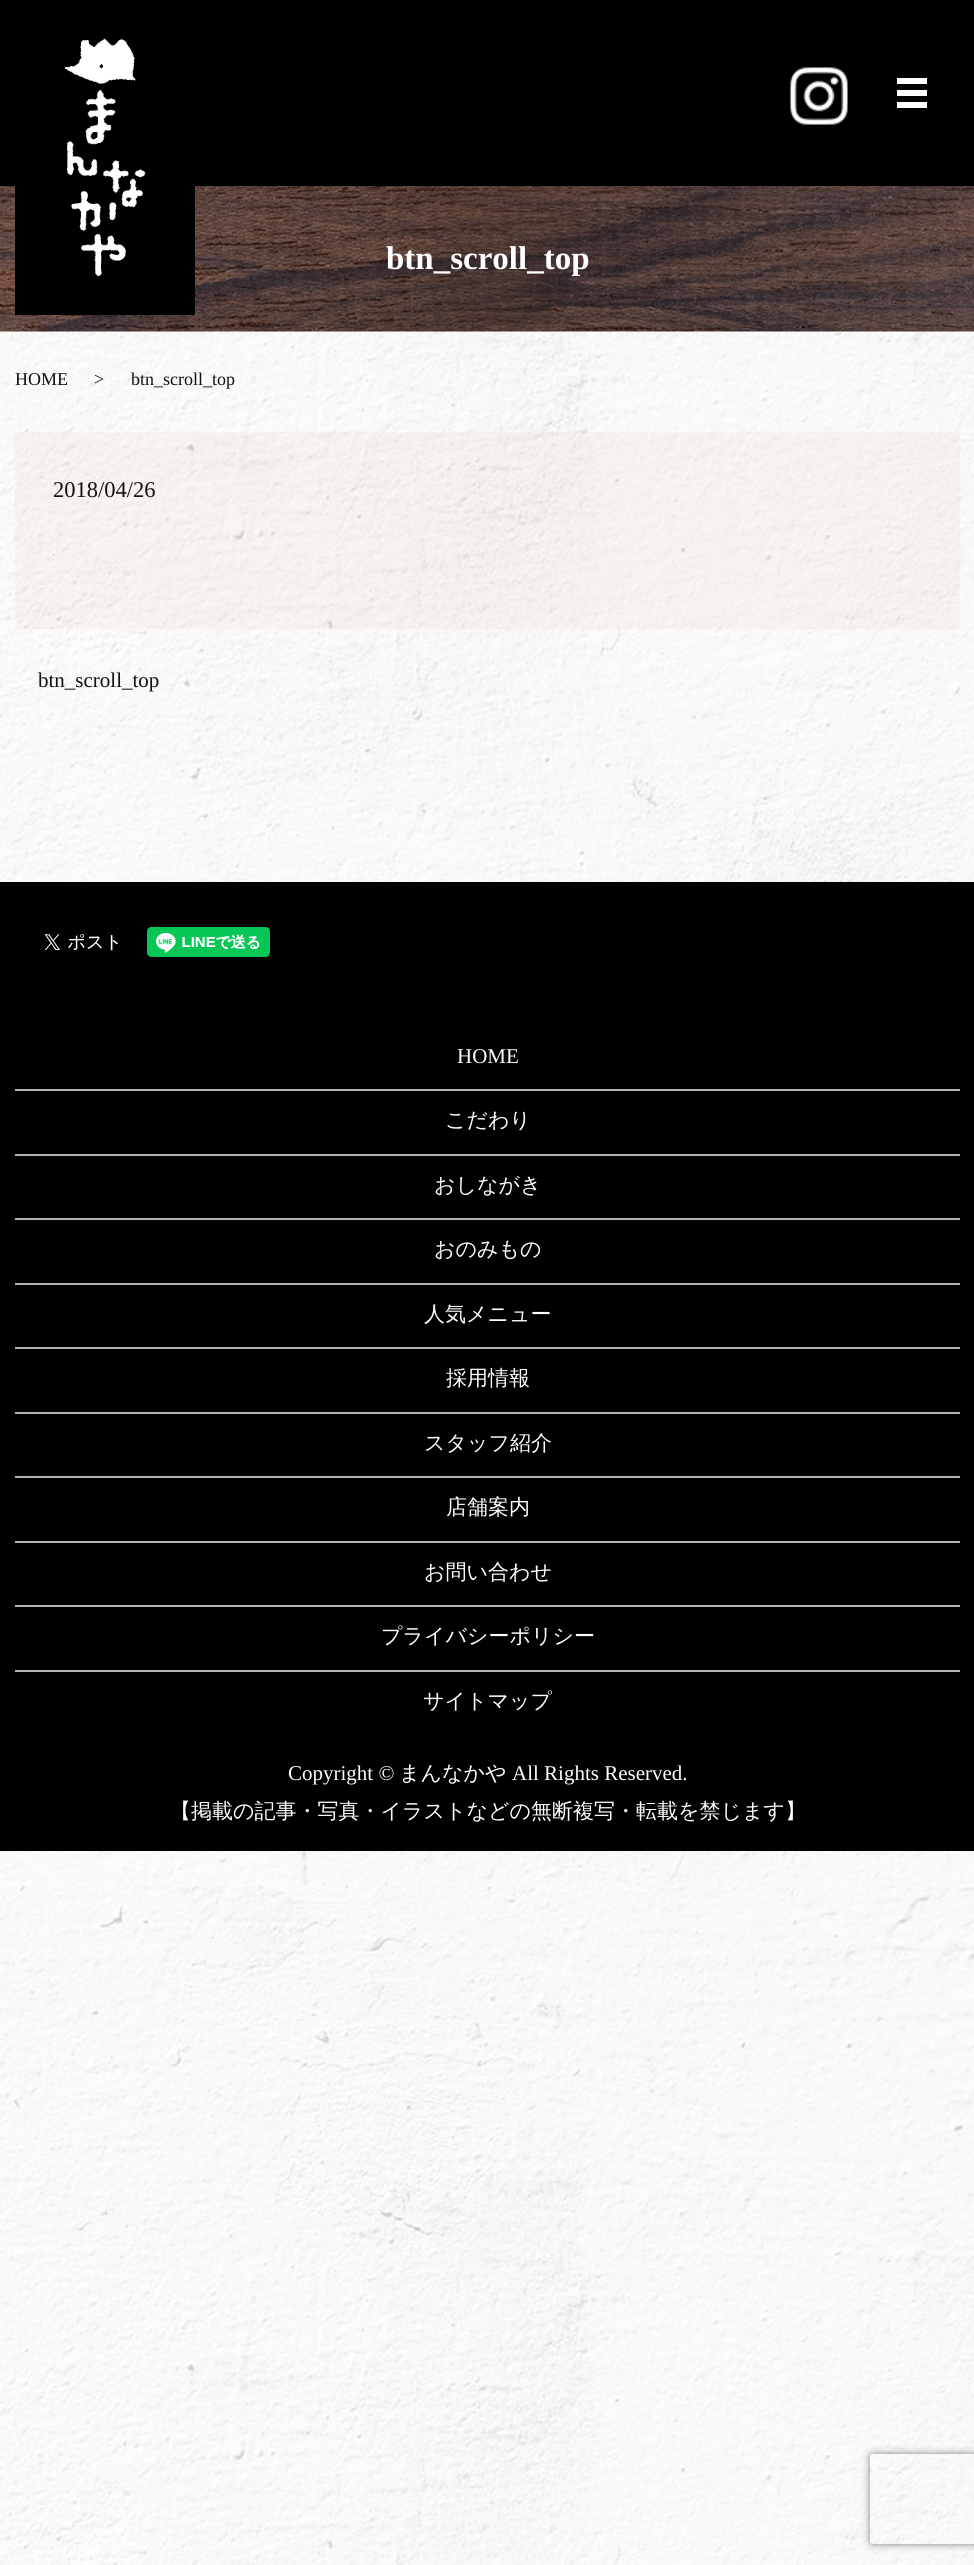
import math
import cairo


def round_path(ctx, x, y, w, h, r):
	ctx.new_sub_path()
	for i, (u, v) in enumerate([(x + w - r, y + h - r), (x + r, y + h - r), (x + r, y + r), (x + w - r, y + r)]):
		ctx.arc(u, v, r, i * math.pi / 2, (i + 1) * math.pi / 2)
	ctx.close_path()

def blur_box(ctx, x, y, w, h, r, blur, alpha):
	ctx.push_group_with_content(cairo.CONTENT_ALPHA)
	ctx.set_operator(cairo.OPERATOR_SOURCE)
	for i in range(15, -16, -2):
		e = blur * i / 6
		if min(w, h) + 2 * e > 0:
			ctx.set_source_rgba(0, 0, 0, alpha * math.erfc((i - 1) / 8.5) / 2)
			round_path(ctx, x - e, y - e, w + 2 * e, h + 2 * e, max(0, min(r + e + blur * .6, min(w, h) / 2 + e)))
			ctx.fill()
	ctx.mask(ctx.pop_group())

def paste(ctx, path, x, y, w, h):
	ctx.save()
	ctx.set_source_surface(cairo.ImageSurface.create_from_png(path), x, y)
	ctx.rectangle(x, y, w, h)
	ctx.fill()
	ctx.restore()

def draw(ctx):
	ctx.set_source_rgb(1, 1, 1)
	ctx.paint()
	paste(ctx, 'media/1.png', 0, 331, 974, 2234)
	ctx.set_source_rgb(0, 0, 0)
	ctx.rectangle(0, 0, 974, 186)
	ctx.fill()
	paste(ctx, 'media/4.png', 0, 186, 974, 146)
	paste(ctx, 'media/2.png', 15, 38, 180, 277)
	paste(ctx, 'media/3.png', 790, 67, 58, 58)
	ctx.set_source_rgb(1, 1, 1)
	ctx.rectangle(897, 78, 30, 6)
	ctx.rectangle(897, 90, 30, 6)
	ctx.rectangle(897, 102, 30, 6)
	ctx.fill()
	ctx.select_font_face('Liberation Serif', cairo.FONT_SLANT_NORMAL, cairo.FONT_WEIGHT_BOLD)
	ctx.set_font_size(33)
	ctx.move_to(386, 269)
	ctx.show_text('btn_scroll_top')
	ctx.select_font_face('Liberation Serif')
	ctx.set_font_size(18)
	ctx.set_source_rgb(0.067, 0.067, 0.067)
	for x, y, s in [
		(15, 385, 'HOME'),
		(94, 385, '>'),
		(131, 385, 'btn_scroll_top'),
	]:
		ctx.move_to(x, y)
		ctx.show_text(s)
	ctx.set_source_rgba(0.792, 0.427, 0.294, 0.05)
	ctx.rectangle(15, 432, 945, 197)
	ctx.fill()
	ctx.set_font_size(22.5)
	ctx.set_source_rgb(0.067, 0.067, 0.067)
	ctx.move_to(53, 497)
	ctx.show_text('2018/04/26')
	ctx.set_source_rgb(0.624, 0.612, 0.608)
	ctx.rectangle(53, 554, 1, 1)
	ctx.fill()
	ctx.set_source_rgb(1, 1, 1)
	ctx.new_path()
	ctx.move_to(19, 681.5)
	ctx.line_to(27.5, 673)
	ctx.line_to(29, 674)
	ctx.line_to(20.5, 682.5)
	ctx.close_path()
	ctx.fill()
	ctx.set_font_size(21)
	ctx.set_source_rgb(0.067, 0.067, 0.067)
	ctx.move_to(38, 687)
	ctx.show_text('btn_scroll_top')
	ctx.set_source_rgb(1, 1, 1)
	ctx.new_path()
	ctx.move_to(27.5, 690)
	ctx.line_to(19, 681.5)
	ctx.line_to(20.5, 680.5)
	ctx.line_to(29, 689)
	ctx.close_path()
	ctx.fill()
	ctx.set_source_rgb(0, 0, 0)
	ctx.rectangle(0, 882, 974, 969)
	ctx.fill()
	paste(ctx, 'media/5.png', 44, 934, 74, 17)
	paste(ctx, 'media/6.png', 147, 927, 123, 30)
	ctx.set_source_rgb(1, 1, 1)
	ctx.move_to(457, 1063)
	ctx.show_text('HOME')
	ctx.set_source_rgb(0.702, 0.702, 0.702)
	ctx.rectangle(15, 1089, 945, 2)
	ctx.fill()
	ctx.select_font_face('WenQuanYi Zen Hei Medium')
	ctx.set_source_rgb(1, 1, 1)
	ctx.move_to(445, 1127)
	ctx.show_text('こだわり')
	ctx.set_source_rgb(0.702, 0.702, 0.702)
	ctx.rectangle(15, 1154, 945, 2)
	ctx.fill()
	ctx.set_source_rgb(1, 1, 1)
	ctx.move_to(434, 1192)
	ctx.show_text('おしながき')
	ctx.set_source_rgb(0.702, 0.702, 0.702)
	ctx.rectangle(15, 1218, 945, 2)
	ctx.fill()
	ctx.set_source_rgb(1, 1, 1)
	ctx.move_to(434, 1256)
	ctx.show_text('おのみもの')
	ctx.set_source_rgb(0.702, 0.702, 0.702)
	ctx.rectangle(15, 1283, 945, 2)
	ctx.fill()
	ctx.set_source_rgb(1, 1, 1)
	ctx.move_to(424, 1321)
	ctx.show_text('人気メニュー')
	ctx.set_source_rgb(0.702, 0.702, 0.702)
	ctx.rectangle(15, 1347, 945, 2)
	ctx.fill()
	ctx.set_source_rgb(1, 1, 1)
	ctx.move_to(446, 1385)
	ctx.show_text('採用情報')
	ctx.set_source_rgb(0.702, 0.702, 0.702)
	ctx.rectangle(15, 1412, 945, 2)
	ctx.fill()
	ctx.set_source_rgb(1, 1, 1)
	ctx.move_to(424, 1450)
	ctx.show_text('スタッフ紹介')
	ctx.set_source_rgb(0.702, 0.702, 0.702)
	ctx.rectangle(15, 1476, 945, 2)
	ctx.fill()
	ctx.set_source_rgb(1, 1, 1)
	ctx.move_to(446, 1514)
	ctx.show_text('店舗案内')
	ctx.set_source_rgb(0.702, 0.702, 0.702)
	ctx.rectangle(15, 1541, 945, 2)
	ctx.fill()
	ctx.set_source_rgb(1, 1, 1)
	ctx.move_to(424, 1579)
	ctx.show_text('お問い合わせ')
	ctx.set_source_rgb(0.702, 0.702, 0.702)
	ctx.rectangle(15, 1605, 945, 2)
	ctx.fill()
	ctx.set_source_rgb(1, 1, 1)
	ctx.move_to(381, 1643)
	ctx.show_text('プライバシーポリシー')
	ctx.set_source_rgb(0.702, 0.702, 0.702)
	ctx.rectangle(15, 1670, 945, 2)
	ctx.fill()
	ctx.set_source_rgb(1, 1, 1)
	ctx.move_to(423, 1708)
	ctx.show_text('サイトマップ')
	ctx.select_font_face('Liberation Serif')
	ctx.move_to(288, 1780)
	ctx.show_text('Copyright ©')
	ctx.select_font_face('WenQuanYi Zen Hei Medium')
	ctx.move_to(399, 1780)
	ctx.show_text('まんなかや')
	ctx.select_font_face('Liberation Serif')
	ctx.move_to(512, 1780)
	ctx.show_text('All Rights Reserved.')
	ctx.select_font_face('WenQuanYi Zen Hei Medium')
	ctx.move_to(170, 1818)
	ctx.show_text('【掲載の記事・写真・イラストなどの無断複写・転載を禁じます】')
	ctx.save()
	ctx.set_fill_rule(cairo.FILL_RULE_EVEN_ODD)
	ctx.new_path()
	ctx.move_to(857, 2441)
	ctx.line_to(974, 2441)
	ctx.line_to(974, 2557)
	ctx.line_to(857, 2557)
	ctx.close_path()
	ctx.move_to(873, 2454)
	ctx.line_to(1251, 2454)
	ctx.curve_to(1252.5, 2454, 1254, 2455.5, 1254, 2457)
	ctx.line_to(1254, 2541)
	ctx.curve_to(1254, 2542.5, 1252.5, 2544, 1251, 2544)
	ctx.line_to(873, 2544)
	ctx.curve_to(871.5, 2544, 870, 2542.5, 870, 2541)
	ctx.line_to(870, 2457)
	ctx.curve_to(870, 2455.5, 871.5, 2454, 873, 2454)
	ctx.close_path()
	ctx.clip()
	ctx.set_source_rgb(0.502, 0.502, 0.502)
	blur_box(ctx, 870, 2454, 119, 90, 3, 4, 1)
	ctx.restore()


surface = cairo.ImageSurface(cairo.FORMAT_RGB24, 974, 2565)
ctx = cairo.Context(surface)
options = cairo.FontOptions()
options.set_hint_metrics(cairo.HINT_METRICS_OFF)
options.set_hint_style(cairo.HINT_STYLE_NONE)
ctx.set_font_options(options)
ctx.set_miter_limit(4)
draw(ctx)
surface.write_to_png('image.png')
